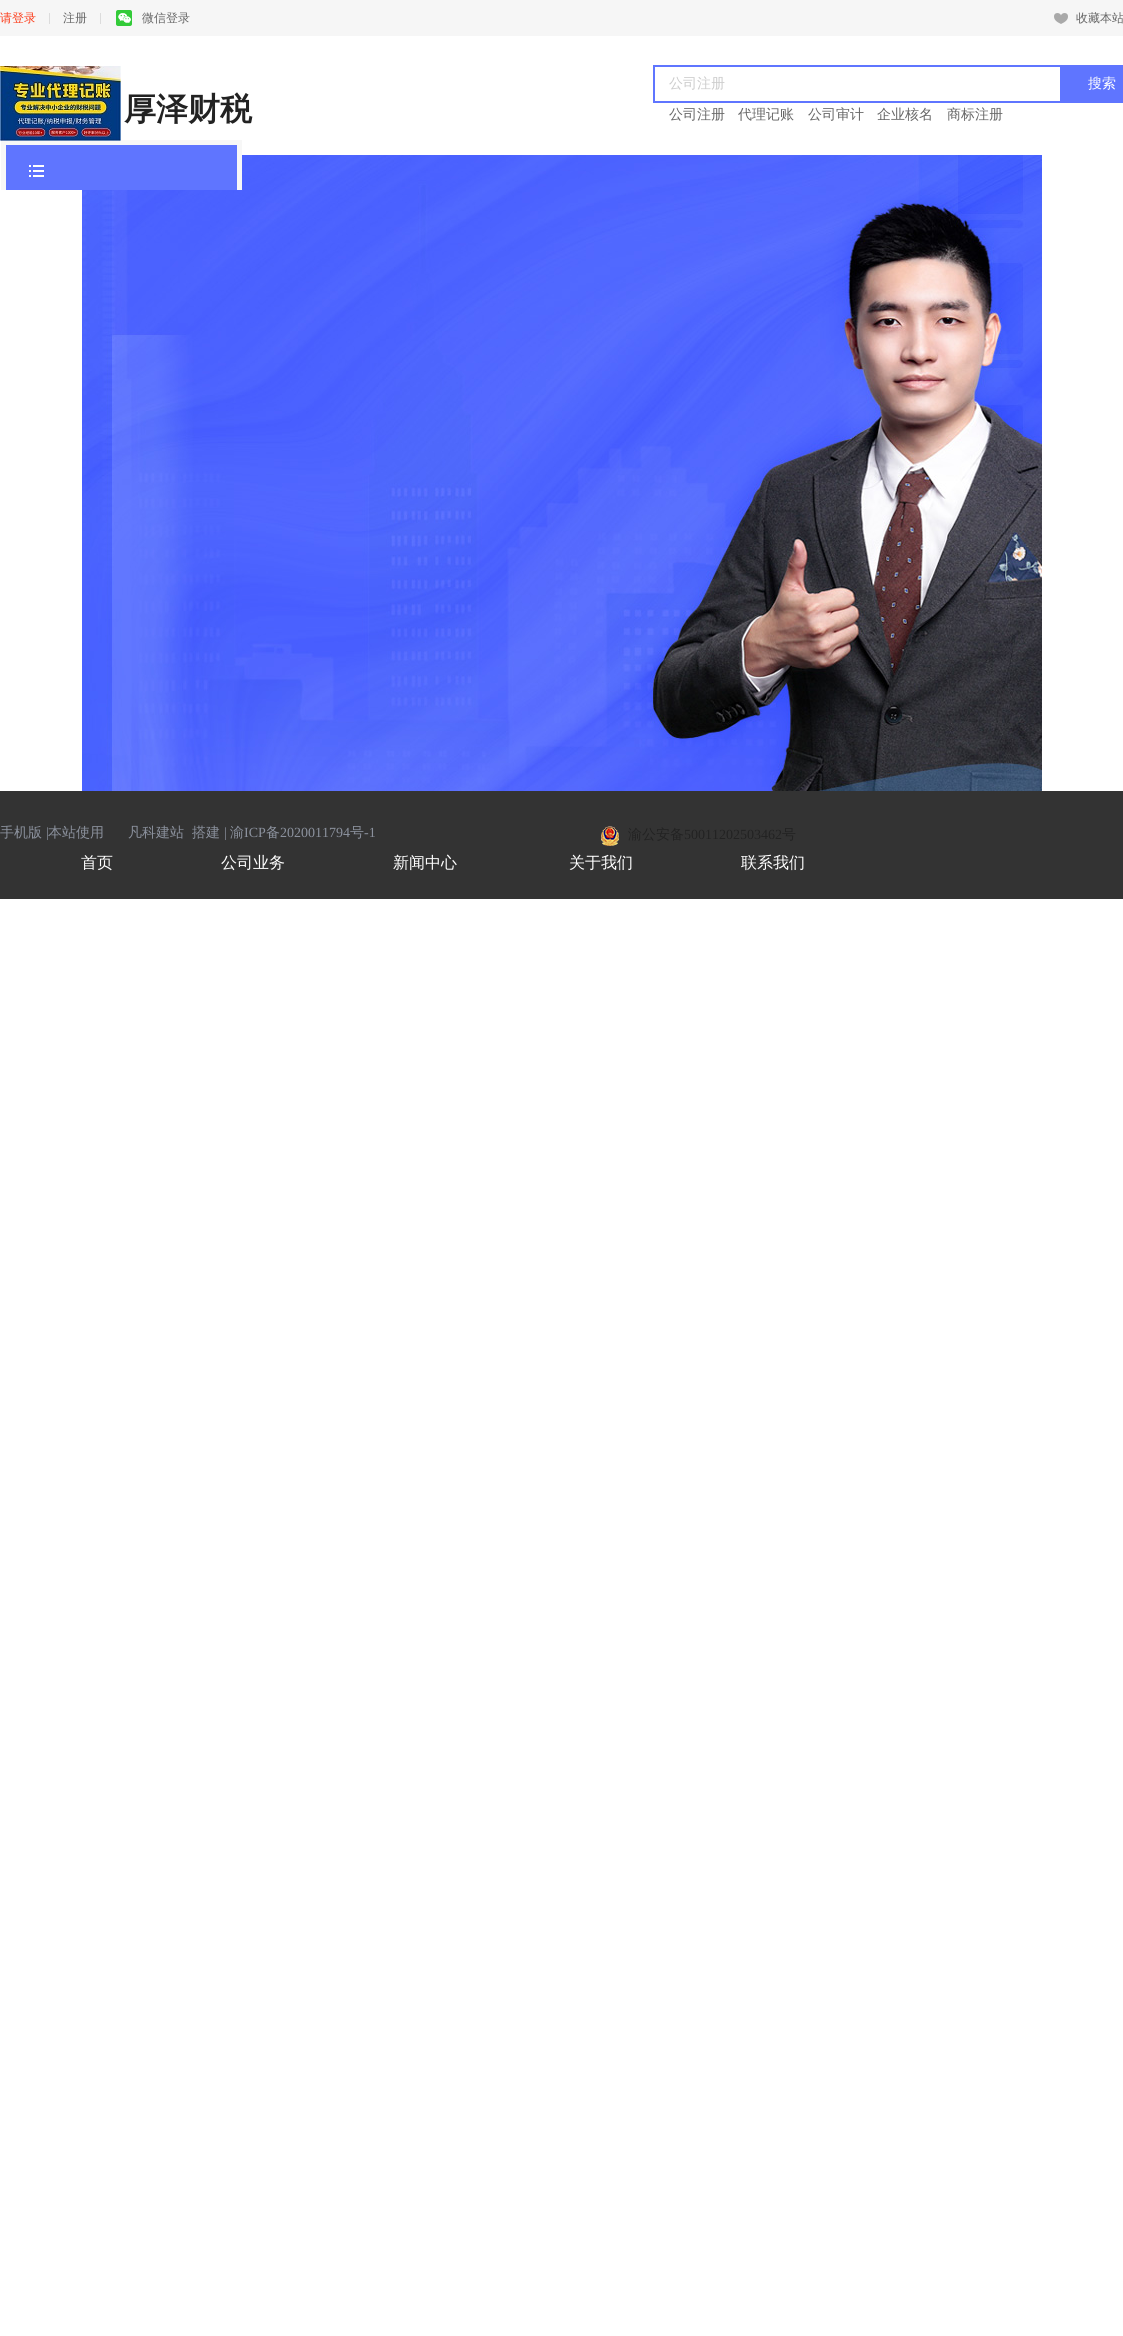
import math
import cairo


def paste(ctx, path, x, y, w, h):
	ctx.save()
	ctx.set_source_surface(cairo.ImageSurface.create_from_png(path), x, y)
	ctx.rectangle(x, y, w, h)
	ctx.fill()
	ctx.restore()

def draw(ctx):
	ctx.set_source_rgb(1, 1, 1)
	ctx.paint()
	ctx.set_source_rgb(0.961, 0.961, 0.961)
	ctx.rectangle(0, 0, 1123, 36)
	ctx.fill()
	ctx.select_font_face('WenQuanYi Zen Hei Medium')
	ctx.set_font_size(12)
	ctx.set_source_rgb(0.988, 0.239, 0.106)
	ctx.move_to(0, 22)
	ctx.show_text('请登录')
	ctx.set_source_rgb(0.863, 0.863, 0.863)
	ctx.rectangle(49, 13, 1, 11)
	ctx.fill()
	ctx.set_source_rgb(0.4, 0.4, 0.4)
	ctx.move_to(63, 22)
	ctx.show_text('注册')
	ctx.set_source_rgb(0.863, 0.863, 0.863)
	ctx.rectangle(100, 13, 1, 11)
	ctx.fill()
	paste(ctx, 'media/1.png', 116, 10, 16, 16)
	ctx.set_source_rgb(0.4, 0.4, 0.4)
	ctx.move_to(142, 22)
	ctx.show_text('微信登录')
	paste(ctx, 'media/2.png', 1054, 13, 14, 11)
	ctx.move_to(1076, 22)
	ctx.show_text('收藏本站')
	paste(ctx, 'media/5.png', 82, 155, 960, 636)
	ctx.set_source_rgb(0.965, 0.965, 0.965)
	ctx.rectangle(1, 140, 241, 50)
	ctx.fill()
	paste(ctx, 'media/3.png', 0, 66, 121, 75)
	ctx.select_font_face('WenQuanYi Zen Hei', cairo.FONT_SLANT_NORMAL, cairo.FONT_WEIGHT_BOLD)
	ctx.set_font_size(32)
	ctx.set_source_rgb(0.133, 0.133, 0.133)
	ctx.move_to(124, 120)
	ctx.show_text('厚泽财税')
	ctx.set_source_rgb(0.373, 0.459, 1)
	ctx.rectangle(653, 65, 407, 2)
	ctx.rectangle(653, 101, 407, 2)
	ctx.rectangle(653, 65, 2, 38)
	ctx.fill()
	ctx.select_font_face('WenQuanYi Zen Hei Medium')
	ctx.set_font_size(14)
	ctx.set_source_rgb(0.8, 0.8, 0.8)
	ctx.move_to(669, 88)
	ctx.show_text('公司注册')
	ctx.set_source_rgb(0.373, 0.459, 1)
	ctx.rectangle(1060, 65, 63, 38)
	ctx.fill()
	ctx.set_source_rgb(1, 1, 1)
	ctx.move_to(1088, 88)
	ctx.show_text('搜索')
	ctx.set_source_rgb(0.4, 0.4, 0.4)
	for x, y, s in [
		(669, 119, '公司注册'),
		(738, 119, '代理记账'),
		(808, 119, '公司审计'),
		(877, 119, '企业核名'),
		(947, 119, '商标注册'),
	]:
		ctx.move_to(x, y)
		ctx.show_text(s)
	ctx.set_source_rgb(0.373, 0.459, 1)
	ctx.rectangle(6, 145, 231, 45)
	ctx.fill()
	paste(ctx, 'media/4.png', 29, 165, 15, 12)
	ctx.set_source_rgb(0.2, 0.2, 0.2)
	ctx.rectangle(0, 791, 1123, 108)
	ctx.fill()
	ctx.set_source_rgb(0.545, 0.569, 0.616)
	ctx.move_to(0, 837)
	ctx.show_text('手机版')
	ctx.select_font_face('Liberation Serif')
	ctx.move_to(46, 837)
	ctx.show_text('|')
	ctx.select_font_face('WenQuanYi Zen Hei Medium')
	for x, y, s in [
		(48, 837, '本站使用'),
		(128, 837, '凡科建站'),
		(192, 837, '搭建'),
	]:
		ctx.move_to(x, y)
		ctx.show_text(s)
	ctx.select_font_face('Liberation Serif')
	ctx.move_to(224, 837)
	ctx.show_text('|')
	ctx.select_font_face('WenQuanYi Zen Hei Medium')
	ctx.move_to(230, 837)
	ctx.show_text('渝')
	ctx.select_font_face('Liberation Serif')
	ctx.move_to(244, 837)
	ctx.show_text('ICP')
	ctx.select_font_face('WenQuanYi Zen Hei Medium')
	ctx.move_to(266, 837)
	ctx.show_text('备')
	ctx.select_font_face('Liberation Serif')
	ctx.move_to(280, 837)
	ctx.show_text('2020011794')
	ctx.select_font_face('WenQuanYi Zen Hei Medium')
	ctx.move_to(350, 837)
	ctx.show_text('号')
	ctx.select_font_face('Liberation Serif')
	ctx.move_to(364, 837)
	ctx.show_text('-1')
	paste(ctx, 'media/6.png', 601, 826, 18, 20)
	ctx.select_font_face('WenQuanYi Zen Hei Medium')
	ctx.set_source_rgb(0.133, 0.133, 0.133)
	ctx.move_to(628, 839)
	ctx.show_text('渝公安备')
	ctx.select_font_face('Liberation Serif')
	ctx.move_to(684, 839)
	ctx.show_text('50011202503462')
	ctx.select_font_face('WenQuanYi Zen Hei Medium')
	ctx.move_to(782, 839)
	ctx.show_text('号')
	ctx.set_font_size(16)
	ctx.set_source_rgb(1, 1, 1)
	for x, y, s in [
		(81, 868, '首页'),
		(221, 868, '公司业务'),
		(393, 868, '新闻中心'),
		(569, 868, '关于我们'),
		(741, 868, '联系我们'),
	]:
		ctx.move_to(x, y)
		ctx.show_text(s)


surface = cairo.ImageSurface(cairo.FORMAT_RGB24, 1123, 2336)
ctx = cairo.Context(surface)
options = cairo.FontOptions()
options.set_hint_metrics(cairo.HINT_METRICS_OFF)
options.set_hint_style(cairo.HINT_STYLE_NONE)
ctx.set_font_options(options)
ctx.set_miter_limit(4)
draw(ctx)
surface.write_to_png('image.png')
